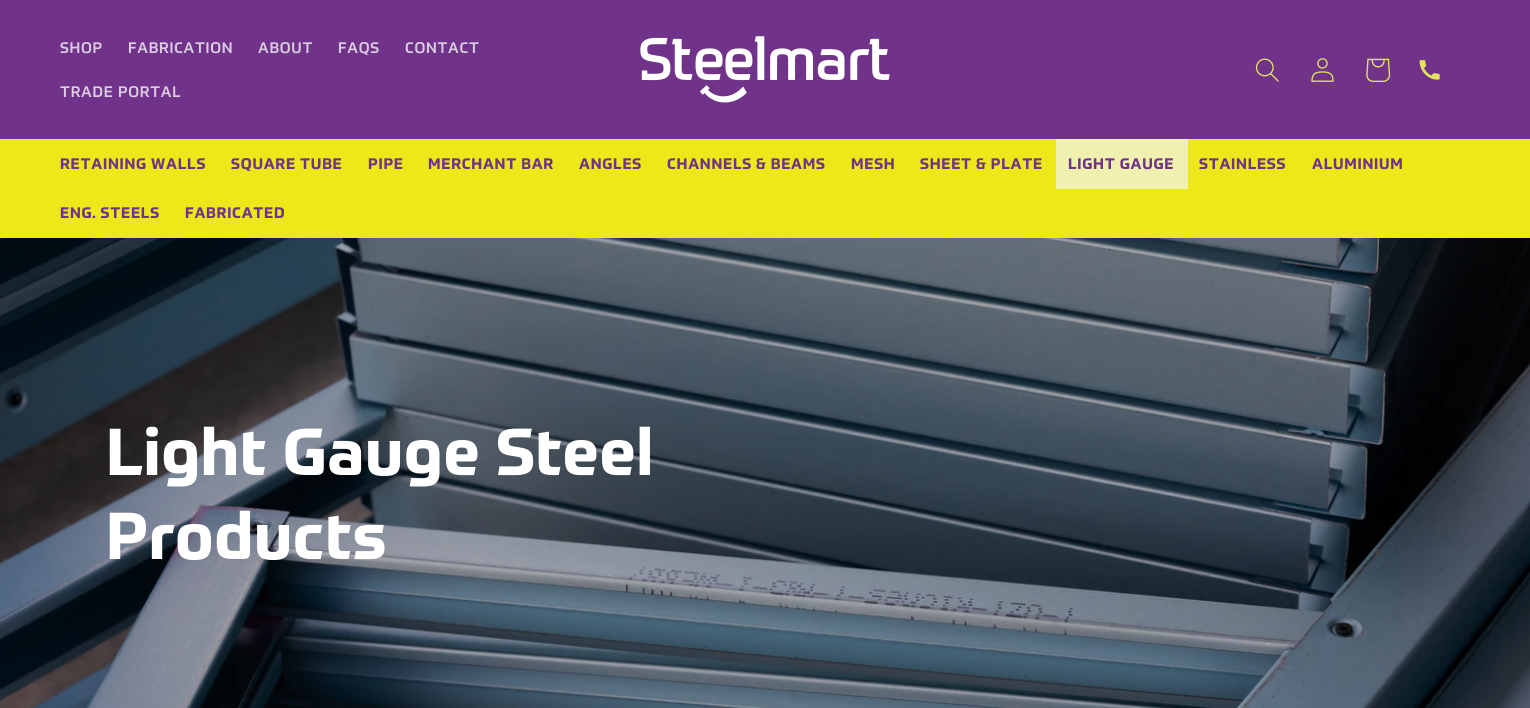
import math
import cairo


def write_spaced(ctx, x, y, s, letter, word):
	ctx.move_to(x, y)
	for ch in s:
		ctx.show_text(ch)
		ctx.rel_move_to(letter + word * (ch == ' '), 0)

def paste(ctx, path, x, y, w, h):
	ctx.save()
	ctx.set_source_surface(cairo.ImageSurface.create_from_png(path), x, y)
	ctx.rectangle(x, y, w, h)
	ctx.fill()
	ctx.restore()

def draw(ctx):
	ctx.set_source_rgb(1, 1, 1)
	ctx.paint()
	ctx.set_source_rgb(0.439, 0.2, 0.537)
	ctx.rectangle(0, 0, 1530, 139)
	ctx.fill()
	ctx.select_font_face('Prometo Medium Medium')
	ctx.set_font_size(15)
	ctx.set_source_rgb(0.859, 0.8, 0.886)
	for x, y, s in [
		(60, 53, 'SHOP'),
		(128, 53, 'FABRICATION'),
		(258, 53, 'ABOUT'),
		(338, 53, 'FAQS'),
		(405, 53, 'CONTACT'),
		(60, 97, 'TRADE PORTAL'),
	]:
		write_spaced(ctx, x, y, s, 0.75, 0)
	paste(ctx, 'media/1.png', 640, 36, 250, 67)
	paste(ctx, 'media/2.png', 1255, 58, 24, 24)
	paste(ctx, 'media/3.png', 1311, 58, 23, 24)
	paste(ctx, 'media/4.png', 1366, 58, 25, 24)
	paste(ctx, 'media/5.png', 1419, 60, 21, 20)
	ctx.set_source_rgb(0.925, 0.91, 0.102)
	ctx.rectangle(0, 139, 1530, 99)
	ctx.fill()
	ctx.select_font_face('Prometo', cairo.FONT_SLANT_NORMAL, cairo.FONT_WEIGHT_BOLD)
	ctx.set_source_rgb(0.439, 0.2, 0.537)
	for x, y, s in [
		(60, 169, 'RETAINING WALLS'),
		(231, 169, 'SQUARE TUBE'),
		(368, 169, 'PIPE'),
		(428, 169, 'MERCHANT BAR'),
		(579, 169, 'ANGLES'),
		(667, 169, 'CHANNELS & BEAMS'),
		(851, 169, 'MESH'),
		(920, 169, 'SHEET & PLATE'),
	]:
		write_spaced(ctx, x, y, s, 0.75, 0)
	ctx.set_source_rgb(0.941, 0.945, 0.686)
	ctx.rectangle(1056, 139, 132, 50)
	ctx.fill()
	ctx.set_source_rgb(0.439, 0.2, 0.537)
	for x, y, s in [
		(1068, 169, 'LIGHT GAUGE'),
		(1199, 169, 'STAINLESS'),
		(1312, 169, 'ALUMINIUM'),
		(60, 218, 'ENG. STEELS'),
		(185, 218, 'FABRICATED'),
	]:
		write_spaced(ctx, x, y, s, 0.75, 0)
	paste(ctx, 'media/6.png', 0, 238, 1530, 470)
	ctx.set_font_size(65)
	ctx.set_source_rgb(1, 1, 1)
	write_spaced(ctx, 106, 475, 'Light Gauge Steel', 0.75, 0)
	write_spaced(ctx, 106, 559, 'Products', 0.75, 0)


surface = cairo.ImageSurface(cairo.FORMAT_RGB24, 1530, 708)
ctx = cairo.Context(surface)
options = cairo.FontOptions()
options.set_hint_metrics(cairo.HINT_METRICS_OFF)
options.set_hint_style(cairo.HINT_STYLE_NONE)
ctx.set_font_options(options)
ctx.set_miter_limit(4)
draw(ctx)
surface.write_to_png('image.png')
